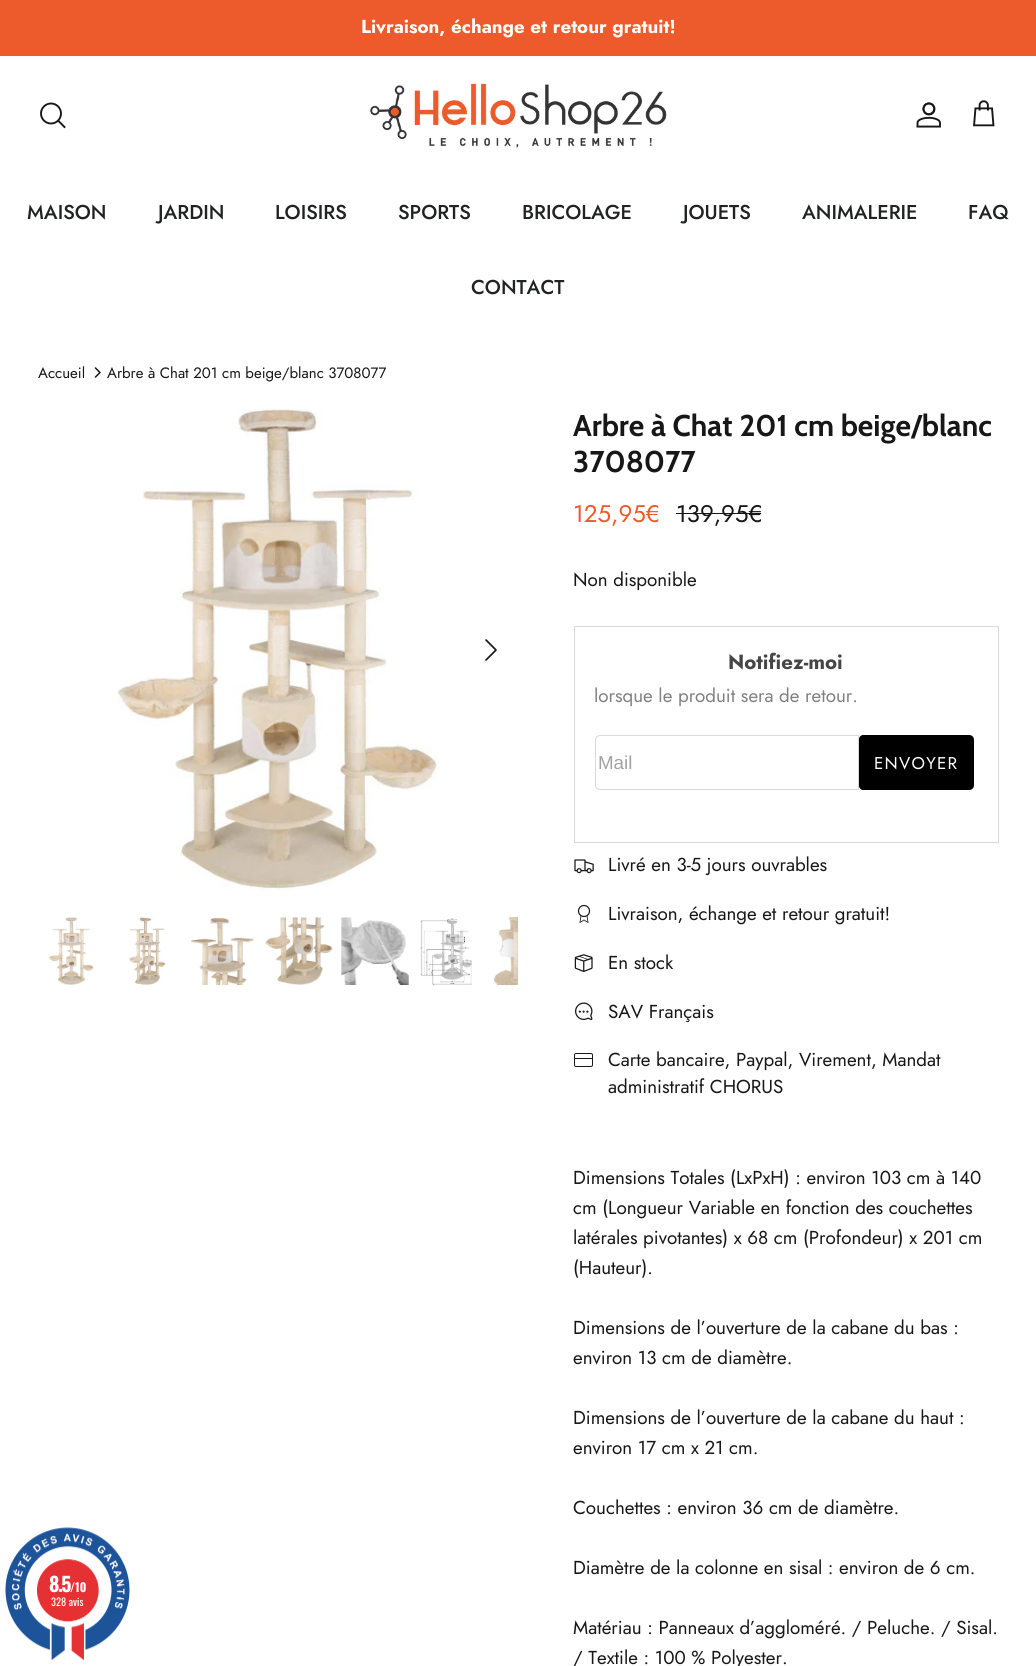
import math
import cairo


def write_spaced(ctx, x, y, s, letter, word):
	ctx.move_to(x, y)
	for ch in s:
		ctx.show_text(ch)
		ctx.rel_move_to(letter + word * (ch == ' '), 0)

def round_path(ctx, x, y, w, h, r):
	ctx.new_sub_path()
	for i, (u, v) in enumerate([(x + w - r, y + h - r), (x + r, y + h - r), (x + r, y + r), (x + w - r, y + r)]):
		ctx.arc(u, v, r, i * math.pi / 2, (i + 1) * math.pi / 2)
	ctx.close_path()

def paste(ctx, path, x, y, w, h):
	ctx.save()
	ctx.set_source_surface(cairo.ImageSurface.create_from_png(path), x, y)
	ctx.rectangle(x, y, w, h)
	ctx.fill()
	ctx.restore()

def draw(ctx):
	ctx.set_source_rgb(1, 1, 1)
	ctx.paint()
	ctx.set_source_rgb(0.929, 0.353, 0.169)
	ctx.rectangle(0, 0, 1036, 56)
	ctx.fill()
	ctx.select_font_face('Jost', cairo.FONT_SLANT_NORMAL, cairo.FONT_WEIGHT_BOLD)
	ctx.set_font_size(18.75)
	ctx.set_source_rgb(1, 1, 1)
	ctx.move_to(361, 33)
	ctx.show_text('Livraison, échange et retour gratuit!')
	ctx.new_path()
	ctx.arc(51, 113.5, 10, 0, 2 * math.pi)
	ctx.set_source_rgb(0.09, 0.09, 0.09)
	ctx.set_line_width(1.9)
	ctx.stroke()
	ctx.new_path()
	ctx.move_to(58.5, 121)
	ctx.line_to(64.5, 127)
	ctx.set_line_cap(cairo.LINE_CAP_SQUARE)
	ctx.stroke()
	paste(ctx, 'media/1.png', 370, 83, 297, 65)
	paste(ctx, 'media/2.png', 916, 102, 25, 26)
	paste(ctx, 'media/3.png', 973, 100, 22, 27)
	ctx.select_font_face('Jost Medium')
	ctx.set_font_size(20)
	ctx.set_source_rgb(0.125, 0.133, 0.137)
	for x, y, s in [
		(27, 219, 'MAISON'),
		(158, 219, 'JARDIN'),
		(275, 219, 'LOISIRS'),
		(398, 219, 'SPORTS'),
		(522, 219, 'BRICOLAGE'),
		(683, 219, 'JOUETS'),
		(802, 219, 'ANIMALERIE'),
		(968, 219, 'FAQ'),
		(471, 294, 'CONTACT'),
	]:
		ctx.move_to(x, y)
		ctx.show_text(s)
	ctx.select_font_face('Jost')
	ctx.set_font_size(15)
	ctx.set_source_rgb(0.09, 0.09, 0.09)
	ctx.move_to(38, 378)
	ctx.show_text('Accueil')
	ctx.new_path()
	ctx.move_to(95.5, 377)
	ctx.line_to(100, 372.5)
	ctx.line_to(95.5, 368)
	ctx.set_line_width(1.5)
	ctx.set_line_cap(cairo.LINE_CAP_ROUND)
	ctx.set_line_join(cairo.LINE_JOIN_ROUND)
	ctx.stroke()
	ctx.move_to(107, 378)
	ctx.show_text('Arbre à Chat 201 cm beige/blanc 3708077')
	paste(ctx, 'media/4.png', 117, 409, 322, 481)
	ctx.new_path()
	ctx.move_to(486, 660)
	ctx.line_to(496, 650)
	ctx.line_to(486, 640)
	ctx.set_line_width(1.7)
	ctx.stroke()
	paste(ctx, 'media/5.png', 48, 917, 46, 68)
	paste(ctx, 'media/6.png', 129, 917, 37, 68)
	paste(ctx, 'media/7.png', 191, 917, 64, 68)
	paste(ctx, 'media/8.png', 265, 917, 68, 68)
	paste(ctx, 'media/9.png', 341, 917, 68, 68)
	paste(ctx, 'media/10.png', 420, 918, 52, 67)
	paste(ctx, 'media/11.png', 494, 917, 24, 68)
	ctx.select_font_face('Cabin', cairo.FONT_SLANT_NORMAL, cairo.FONT_WEIGHT_BOLD)
	ctx.set_font_size(30)
	ctx.move_to(573, 436)
	ctx.show_text('Arbre à Chat 201 cm beige/blanc')
	ctx.move_to(573, 472)
	ctx.show_text('3708077')
	ctx.select_font_face('Jost')
	ctx.set_font_size(24)
	ctx.set_source_rgb(0.929, 0.353, 0.169)
	ctx.move_to(573, 522)
	ctx.show_text('125,95€')
	ctx.set_source_rgb(0.09, 0.09, 0.09)
	ctx.move_to(676, 522)
	ctx.show_text('139,95€')
	ctx.rectangle(676, 513, 85, 1)
	ctx.fill()
	ctx.set_font_size(18.75)
	ctx.move_to(573, 586)
	ctx.show_text('Non disponible')
	ctx.rectangle(574.5, 626.5, 424, 216)
	ctx.set_source_rgb(0.851, 0.851, 0.851)
	ctx.set_line_width(1)
	ctx.set_line_cap(cairo.LINE_CAP_BUTT)
	ctx.set_line_join(cairo.LINE_JOIN_MITER)
	ctx.stroke()
	ctx.select_font_face('Jost', cairo.FONT_SLANT_NORMAL, cairo.FONT_WEIGHT_BOLD)
	ctx.set_font_size(20.5)
	ctx.set_source_rgb(0.275, 0.275, 0.275)
	ctx.move_to(728, 669)
	ctx.show_text('Notifiez-moi')
	ctx.select_font_face('Jost')
	ctx.set_font_size(18.75)
	ctx.set_source_rgb(0.502, 0.502, 0.502)
	ctx.move_to(594, 702)
	ctx.show_text('lorsque le produit sera de retour.')
	ctx.new_path()
	ctx.move_to(600, 735.5)
	ctx.line_to(858.5, 735.5)
	ctx.line_to(858.5, 789.5)
	ctx.line_to(600, 789.5)
	ctx.curve_to(597.5, 789.5, 595.5, 787.5, 595.5, 785)
	ctx.line_to(595.5, 740)
	ctx.curve_to(595.5, 737.5, 597.5, 735.5, 600, 735.5)
	ctx.close_path()
	ctx.set_source_rgb(0.851, 0.851, 0.851)
	ctx.stroke()
	ctx.select_font_face('Liberation Sans')
	ctx.set_source_rgb(0.643, 0.631, 0.631)
	ctx.move_to(598, 769)
	ctx.show_text('Mail')
	ctx.set_source_rgb(0, 0, 0)
	ctx.new_path()
	ctx.move_to(863, 735)
	ctx.line_to(969, 735)
	ctx.curve_to(972, 735, 974, 737, 974, 740)
	ctx.line_to(974, 785)
	ctx.curve_to(974, 788, 972, 790, 969, 790)
	ctx.line_to(863, 790)
	ctx.curve_to(861, 790, 859, 788, 859, 786)
	ctx.line_to(859, 739)
	ctx.curve_to(859, 737, 861, 735, 863, 735)
	ctx.close_path()
	ctx.fill()
	ctx.select_font_face('Jost')
	ctx.set_font_size(17)
	ctx.set_source_rgb(1, 1, 1)
	write_spaced(ctx, 874, 769, 'ENVOYER', 1.25, 0)
	paste(ctx, 'media/12.png', 574, 859, 20, 15)
	ctx.set_font_size(18.75)
	ctx.set_source_rgb(0.09, 0.09, 0.09)
	ctx.move_to(608, 871)
	ctx.show_text('Livré en 3-5 jours ouvrables')
	ctx.new_path()
	ctx.arc(584, 911, 5.5, 0, 2 * math.pi)
	ctx.set_line_width(1.2)
	ctx.stroke()
	ctx.new_path()
	ctx.move_to(581, 915.5)
	ctx.line_to(580, 922.5)
	ctx.line_to(584, 920)
	ctx.line_to(588, 922.5)
	ctx.line_to(587, 915.5)
	ctx.set_line_width(0.8)
	ctx.stroke()
	ctx.move_to(608, 920)
	ctx.show_text('Livraison, échange et retour gratuit!')
	paste(ctx, 'media/13.png', 574, 954, 19, 18)
	ctx.move_to(608, 969)
	ctx.show_text('En stock')
	paste(ctx, 'media/14.png', 575, 1002, 18, 18)
	ctx.move_to(608, 1018)
	ctx.show_text('SAV Français')
	round_path(ctx, 574.5, 1053.5, 18, 13, 1.5)
	ctx.set_line_width(1)
	ctx.stroke()
	ctx.rectangle(575, 1058, 18, 1)
	ctx.fill()
	for x, y, s in [
		(608, 1066, 'Carte bancaire, Paypal, Virement, Mandat'),
		(608, 1093, 'administratif CHORUS'),
		(573, 1184, 'Dimensions Totales (LxPxH) : environ 103 cm à 140'),
		(573, 1214, 'cm (Longueur Variable en fonction des couchettes'),
		(573, 1244, 'latérales pivotantes) x 68 cm (Profondeur) x 201 cm'),
		(573, 1274, '(Hauteur).'),
		(573, 1334, 'Dimensions de l’ouverture de la cabane du bas :'),
		(573, 1364, 'environ 13 cm de diamètre.'),
		(573, 1424, 'Dimensions de l’ouverture de la cabane du haut :'),
		(573, 1454, 'environ 17 cm x 21 cm.'),
		(573, 1514, 'Couchettes : environ 36 cm de diamètre.'),
		(573, 1574, 'Diamètre de la colonne en sisal : environ de 6 cm.'),
		(573, 1634, 'Matériau : Panneaux d’aggloméré. / Peluche. / Sisal.'),
		(573, 1664, '/ Textile : 100 % Polyester.'),
	]:
		ctx.move_to(x, y)
		ctx.show_text(s)
	paste(ctx, 'media/15.png', 5, 1527, 125, 134)
	ctx.select_font_face('Oswald', cairo.FONT_SLANT_NORMAL, cairo.FONT_WEIGHT_BOLD)
	ctx.set_font_size(20)
	ctx.set_source_rgb(1, 1, 1)
	write_spaced(ctx, 49, 1592, '8.5', -1.5, 0)
	ctx.set_font_size(12)
	ctx.move_to(70, 1592)
	ctx.show_text('/10')
	ctx.select_font_face('Oswald')
	ctx.set_font_size(10.5)
	ctx.move_to(51, 1606)
	ctx.show_text('328 avis')


surface = cairo.ImageSurface(cairo.FORMAT_RGB24, 1036, 1666)
ctx = cairo.Context(surface)
options = cairo.FontOptions()
options.set_hint_metrics(cairo.HINT_METRICS_OFF)
options.set_hint_style(cairo.HINT_STYLE_NONE)
ctx.set_font_options(options)
ctx.set_miter_limit(4)
draw(ctx)
surface.write_to_png('image.png')
